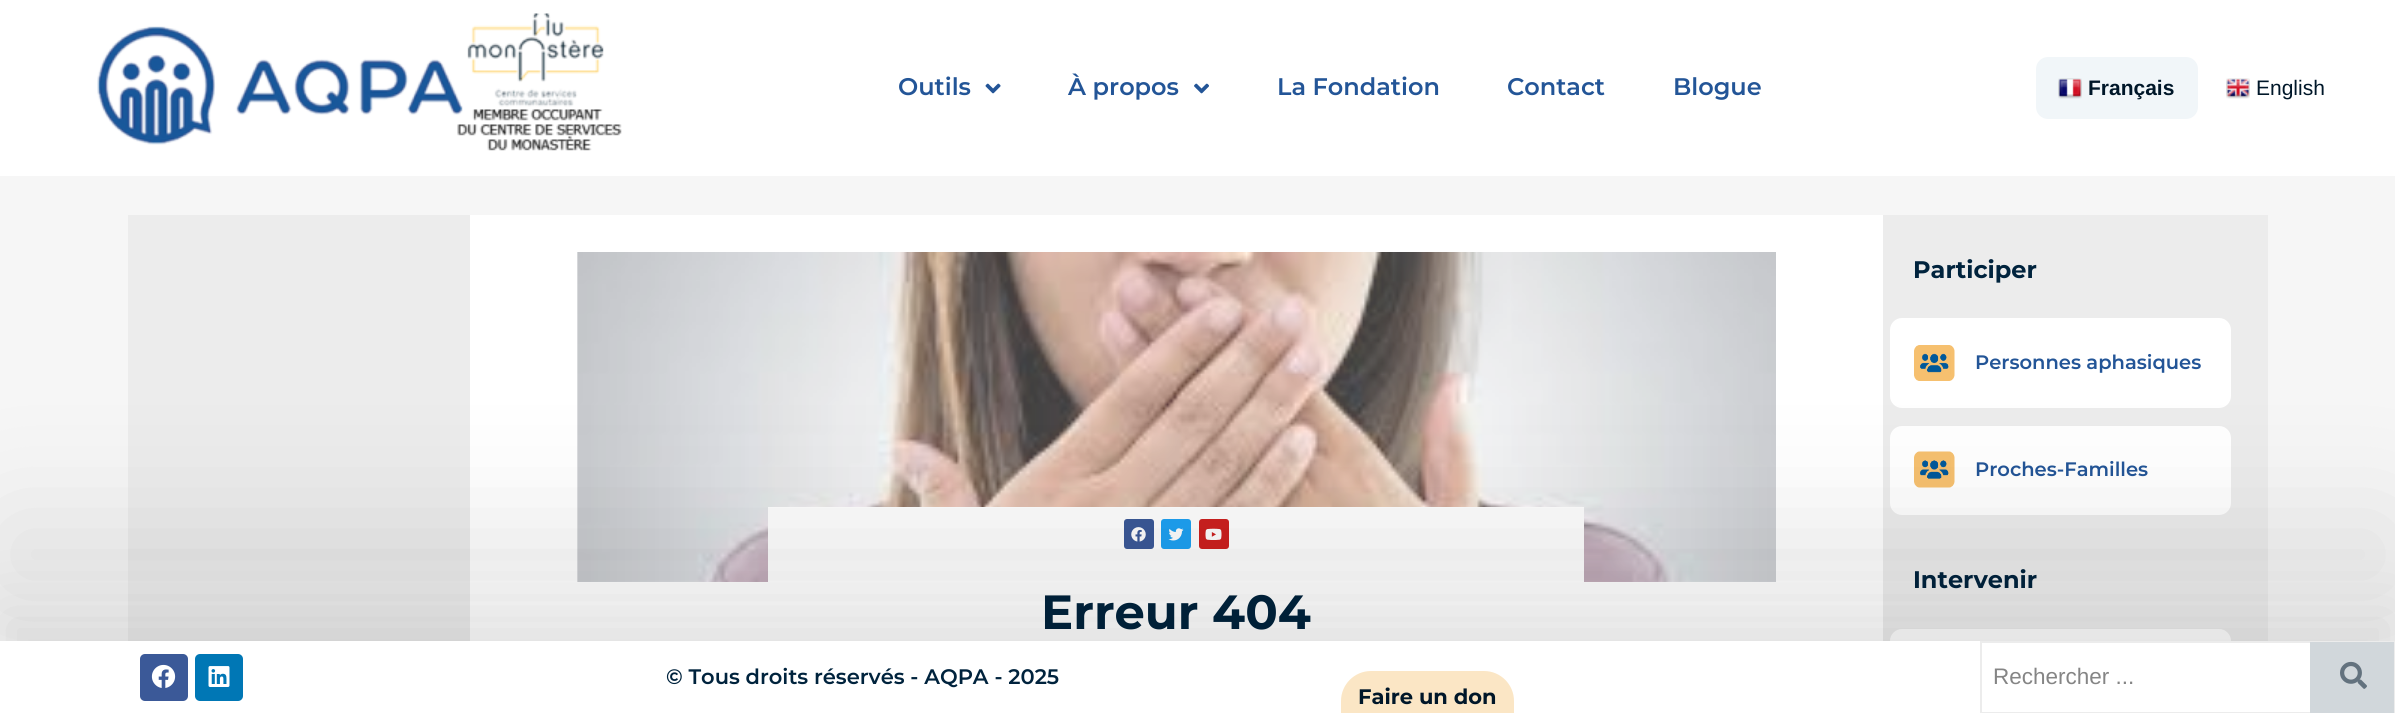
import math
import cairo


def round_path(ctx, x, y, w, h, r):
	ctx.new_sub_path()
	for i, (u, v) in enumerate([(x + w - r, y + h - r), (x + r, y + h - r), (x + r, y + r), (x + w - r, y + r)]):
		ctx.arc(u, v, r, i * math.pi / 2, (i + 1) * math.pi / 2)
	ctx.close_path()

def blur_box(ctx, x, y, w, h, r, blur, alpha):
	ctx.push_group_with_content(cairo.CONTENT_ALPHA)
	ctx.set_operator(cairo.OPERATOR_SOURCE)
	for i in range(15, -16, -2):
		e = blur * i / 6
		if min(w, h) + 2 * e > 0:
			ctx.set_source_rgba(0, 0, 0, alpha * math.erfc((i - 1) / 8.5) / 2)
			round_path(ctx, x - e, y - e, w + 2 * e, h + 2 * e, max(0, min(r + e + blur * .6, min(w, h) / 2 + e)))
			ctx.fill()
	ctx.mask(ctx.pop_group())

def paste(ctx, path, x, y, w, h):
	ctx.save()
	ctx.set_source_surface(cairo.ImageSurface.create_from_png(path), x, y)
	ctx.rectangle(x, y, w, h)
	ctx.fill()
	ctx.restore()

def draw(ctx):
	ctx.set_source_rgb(0.961, 0.961, 0.961)
	ctx.paint()
	ctx.set_source_rgb(1, 1, 1)
	ctx.rectangle(0, 0, 2395, 176)
	ctx.fill()
	paste(ctx, 'media/1.png', 97, 13, 525, 138)
	ctx.select_font_face('Montserrat SemiBold')
	ctx.set_font_size(24)
	ctx.set_source_rgb(0.137, 0.333, 0.592)
	ctx.move_to(898, 95)
	ctx.show_text('Outils')
	paste(ctx, 'media/2.png', 985, 83, 16, 11)
	ctx.move_to(1068, 95)
	ctx.show_text('À propos')
	paste(ctx, 'media/3.png', 1194, 83, 15, 11)
	for x, y, s in [
		(1277, 95, 'La Fondation'),
		(1507, 95, 'Contact'),
		(1673, 95, 'Blogue'),
	]:
		ctx.move_to(x, y)
		ctx.show_text(s)
	ctx.set_source_rgb(0.945, 0.961, 0.976)
	round_path(ctx, 2036, 57, 162, 62, 12)
	ctx.fill()
	paste(ctx, 'media/4.png', 2058, 78, 24, 21)
	ctx.select_font_face('Liberation Sans', cairo.FONT_SLANT_NORMAL, cairo.FONT_WEIGHT_BOLD)
	ctx.set_font_size(21)
	ctx.set_source_rgb(0, 0.09, 0.161)
	ctx.move_to(2088, 95)
	ctx.show_text('Français')
	paste(ctx, 'media/5.png', 2226, 78, 24, 21)
	ctx.select_font_face('Liberation Sans')
	ctx.move_to(2256, 95)
	ctx.show_text('English')
	ctx.set_source_rgb(0.922, 0.922, 0.922)
	ctx.rectangle(128, 215, 2140, 426)
	ctx.fill()
	ctx.select_font_face('Montserrat', cairo.FONT_SLANT_NORMAL, cairo.FONT_WEIGHT_BOLD)
	ctx.set_font_size(24)
	ctx.set_source_rgb(0, 0.137, 0.239)
	ctx.move_to(1913, 278)
	ctx.show_text('Participer')
	ctx.set_source_rgb(1, 1, 1)
	round_path(ctx, 1890, 318, 341, 90, 12)
	ctx.fill()
	paste(ctx, 'media/6.png', 1914, 345, 41, 36)
	ctx.select_font_face('Montserrat SemiBold')
	ctx.set_font_size(19.5)
	ctx.set_source_rgb(0.137, 0.333, 0.592)
	ctx.move_to(1975, 369)
	ctx.show_text('Personnes aphasiques')
	ctx.set_source_rgb(1, 1, 1)
	round_path(ctx, 1890, 426, 341, 89, 12)
	ctx.fill()
	paste(ctx, 'media/7.png', 1914, 451, 41, 37)
	ctx.set_source_rgb(0.137, 0.333, 0.592)
	ctx.move_to(1975, 476)
	ctx.show_text('Proches-Familles')
	ctx.select_font_face('Montserrat', cairo.FONT_SLANT_NORMAL, cairo.FONT_WEIGHT_BOLD)
	ctx.set_font_size(24)
	ctx.set_source_rgb(0, 0.137, 0.239)
	ctx.move_to(1913, 588)
	ctx.show_text('Intervenir')
	ctx.set_source_rgb(1, 1, 1)
	round_path(ctx, 1890, 629, 341, 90, 12)
	ctx.fill()
	ctx.rectangle(470, 215, 1413, 426)
	ctx.fill()
	paste(ctx, 'media/8.png', 577, 252, 1199, 330)
	ctx.rectangle(768, 507, 816, 75)
	ctx.fill()
	ctx.set_source_rgb(0.231, 0.349, 0.596)
	round_path(ctx, 1124, 519, 30, 30, 3)
	ctx.fill()
	paste(ctx, 'media/9.png', 1131, 527, 15, 15)
	ctx.set_source_rgb(0.114, 0.631, 0.949)
	round_path(ctx, 1161, 519, 30, 30, 3)
	ctx.fill()
	paste(ctx, 'media/10.png', 1168, 528, 16, 13)
	ctx.set_source_rgb(0.804, 0.125, 0.122)
	round_path(ctx, 1199, 519, 30, 30, 3)
	ctx.fill()
	paste(ctx, 'media/11.png', 1205, 528, 17, 12)
	ctx.set_font_size(48)
	ctx.set_source_rgb(0, 0.137, 0.239)
	ctx.move_to(1041, 629)
	ctx.show_text('Erreur 404')
	ctx.set_source_rgb(0, 0, 0)
	blur_box(ctx, 0, 518, 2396, 73, 0, 61.5, 0.09)
	blur_box(ctx, 0, 611, 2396, 73, 0, 34, 0.1)
	ctx.set_source_rgb(1, 1, 1)
	ctx.rectangle(0, 641, 2310, 72)
	ctx.fill()
	ctx.set_source_rgb(0.231, 0.349, 0.596)
	round_path(ctx, 140, 654, 48, 47, 5)
	ctx.fill()
	paste(ctx, 'media/12.png', 151, 664, 25, 24)
	ctx.set_source_rgb(0, 0.467, 0.71)
	round_path(ctx, 195, 654, 48, 47, 5)
	ctx.fill()
	paste(ctx, 'media/13.png', 208, 666, 22, 21)
	ctx.select_font_face('Montserrat SemiBold')
	ctx.set_font_size(21)
	ctx.set_source_rgb(0, 0.137, 0.239)
	ctx.move_to(666, 684)
	ctx.show_text('© Tous droits réservés - AQPA - 2025')
	ctx.rectangle(1981, 642, 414, 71)
	ctx.set_source_rgb(0.922, 0.922, 0.922)
	ctx.stroke()
	ctx.select_font_face('Liberation Sans')
	ctx.set_font_size(22.5)
	ctx.set_source_rgb(0.522, 0.522, 0.522)
	ctx.move_to(1993, 684)
	ctx.show_text('Rechercher ...')
	ctx.set_source_rgb(0.82, 0.843, 0.859)
	ctx.rectangle(2310, 642, 84, 71)
	ctx.fill()
	paste(ctx, 'media/14.png', 2340, 661, 27, 28)
	ctx.set_source_rgb(0.984, 0.902, 0.773)
	ctx.new_path()
	ctx.move_to(1371, 672)
	ctx.line_to(1484, 672)
	ctx.curve_to(1500, 672, 1513, 685, 1513, 701)
	ctx.line_to(1513, 713)
	ctx.line_to(1342, 713)
	ctx.line_to(1342, 701)
	ctx.curve_to(1342, 685, 1355, 672, 1371, 672)
	ctx.close_path()
	ctx.fill_preserve()
	ctx.stroke()
	ctx.select_font_face('Montserrat', cairo.FONT_SLANT_NORMAL, cairo.FONT_WEIGHT_BOLD)
	ctx.set_font_size(21)
	ctx.set_source_rgb(0, 0.09, 0.161)
	ctx.move_to(1358, 704)
	ctx.show_text('Faire un don')


surface = cairo.ImageSurface(cairo.FORMAT_RGB24, 2395, 713)
ctx = cairo.Context(surface)
options = cairo.FontOptions()
options.set_hint_metrics(cairo.HINT_METRICS_OFF)
options.set_hint_style(cairo.HINT_STYLE_NONE)
ctx.set_font_options(options)
ctx.set_miter_limit(4)
draw(ctx)
surface.write_to_png('image.png')
